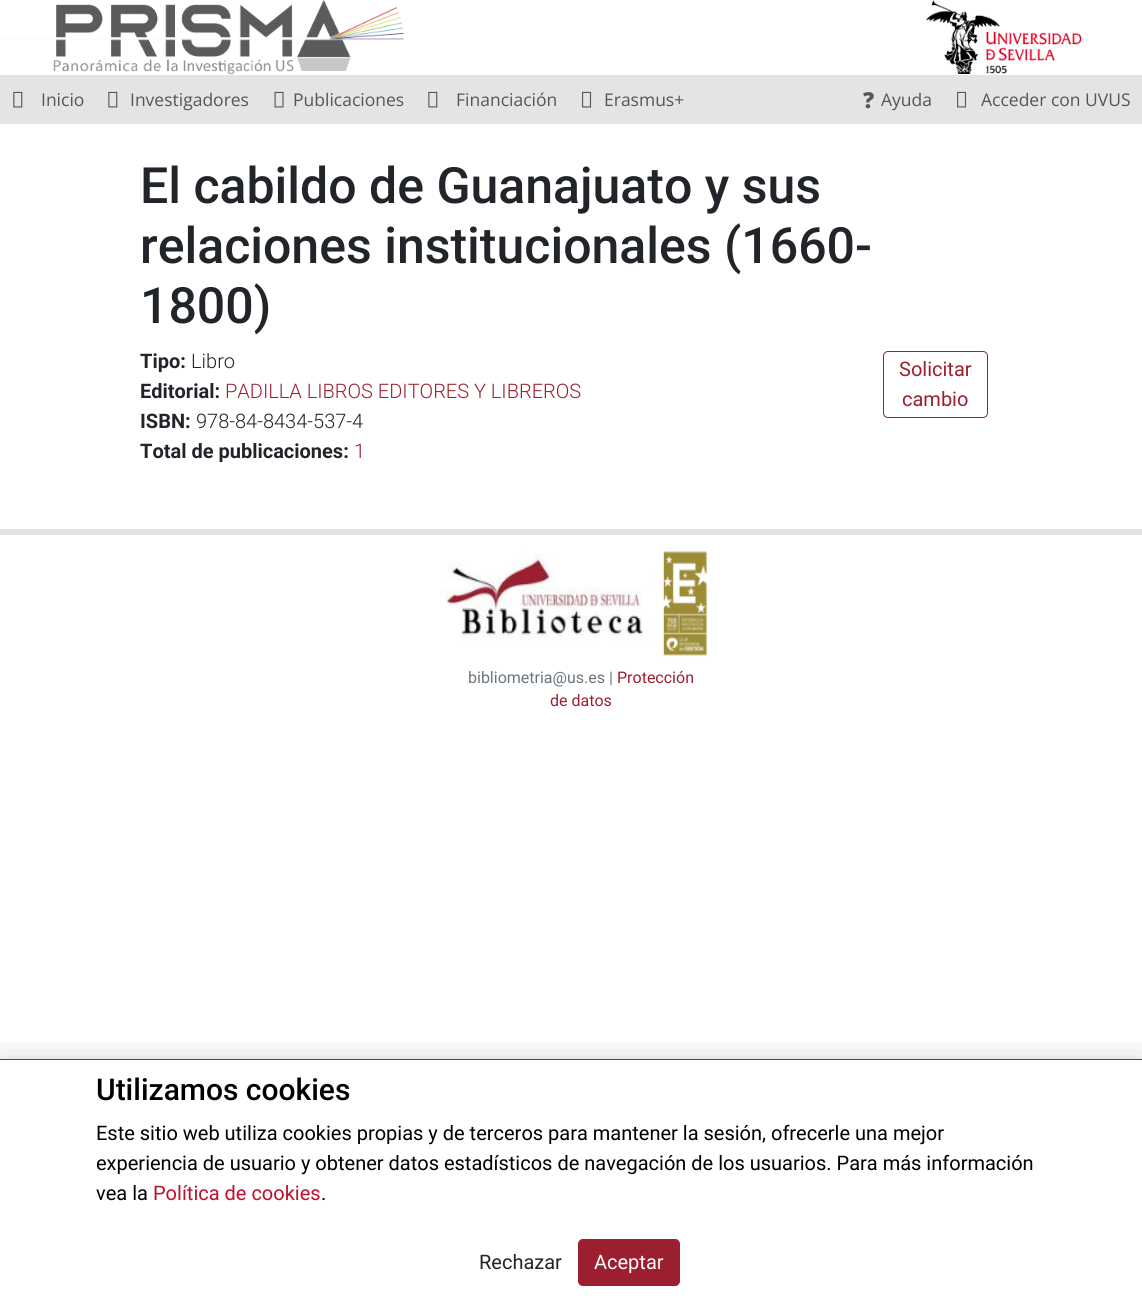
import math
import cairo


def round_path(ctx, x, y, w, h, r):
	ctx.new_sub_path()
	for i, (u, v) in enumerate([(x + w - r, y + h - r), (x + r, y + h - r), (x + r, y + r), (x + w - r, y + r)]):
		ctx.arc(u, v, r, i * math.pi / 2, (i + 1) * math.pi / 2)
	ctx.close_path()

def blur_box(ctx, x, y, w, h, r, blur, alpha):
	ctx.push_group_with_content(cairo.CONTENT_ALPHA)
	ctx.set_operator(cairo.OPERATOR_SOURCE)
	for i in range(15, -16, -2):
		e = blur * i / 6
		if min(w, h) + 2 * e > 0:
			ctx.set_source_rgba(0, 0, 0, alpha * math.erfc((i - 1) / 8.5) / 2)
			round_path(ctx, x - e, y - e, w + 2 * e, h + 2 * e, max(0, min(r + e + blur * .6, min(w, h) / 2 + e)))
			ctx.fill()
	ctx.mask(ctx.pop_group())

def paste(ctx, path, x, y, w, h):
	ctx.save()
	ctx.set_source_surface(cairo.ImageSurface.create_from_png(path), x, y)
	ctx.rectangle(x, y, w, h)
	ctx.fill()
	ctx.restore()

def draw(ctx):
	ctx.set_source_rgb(1, 1, 1)
	ctx.paint()
	paste(ctx, 'media/1.png', 0, 0, 404, 75)
	paste(ctx, 'media/2.png', 926, 0, 156, 74)
	ctx.set_source_rgb(0.894, 0.894, 0.894)
	ctx.rectangle(0, 75, 1142, 49)
	ctx.fill()
	paste(ctx, 'media/3.png', 13, 91, 10, 17)
	ctx.select_font_face('Open Sans')
	ctx.set_font_size(17.5)
	ctx.set_source_rgb(0.333, 0.333, 0.333)
	ctx.move_to(41, 106)
	ctx.show_text('Inicio')
	paste(ctx, 'media/3.png', 108, 91, 10, 17)
	ctx.move_to(130, 106)
	ctx.show_text('Investigadores')
	paste(ctx, 'media/4.png', 274, 91, 10, 17)
	ctx.move_to(293, 106)
	ctx.show_text('Publicaciones')
	paste(ctx, 'media/3.png', 428, 91, 10, 17)
	ctx.move_to(456, 106)
	ctx.show_text('Financiación')
	paste(ctx, 'media/5.png', 582, 91, 10, 17)
	ctx.move_to(604, 106)
	ctx.show_text('Erasmus+')
	ctx.select_font_face('Noto Sans Black')
	ctx.set_font_size(22)
	ctx.move_to(863, 108)
	ctx.show_text('?')
	ctx.select_font_face('Open Sans')
	ctx.set_font_size(17.5)
	ctx.move_to(881, 106)
	ctx.show_text('Ayuda')
	paste(ctx, 'media/5.png', 957, 91, 10, 17)
	ctx.move_to(981, 106)
	ctx.show_text('Acceder con UVUS')
	ctx.select_font_face('Roboto Medium')
	ctx.set_font_size(50)
	ctx.set_source_rgb(0.129, 0.145, 0.161)
	for x, y, s in [
		(140, 203, 'El cabildo de Guanajuato y sus'),
		(140, 263, 'relaciones institucionales (1660-'),
		(140, 323, '1800)'),
	]:
		ctx.move_to(x, y)
		ctx.show_text(s)
	ctx.select_font_face('Roboto', cairo.FONT_SLANT_NORMAL, cairo.FONT_WEIGHT_BOLD)
	ctx.set_font_size(20)
	ctx.move_to(140, 368)
	ctx.show_text('Tipo:')
	ctx.select_font_face('Roboto Light')
	ctx.move_to(191, 368)
	ctx.show_text('Libro')
	ctx.select_font_face('Roboto', cairo.FONT_SLANT_NORMAL, cairo.FONT_WEIGHT_BOLD)
	ctx.move_to(140, 398)
	ctx.show_text('Editorial:')
	ctx.select_font_face('Roboto Light')
	ctx.set_source_rgb(0.612, 0.122, 0.184)
	ctx.move_to(225, 398)
	ctx.show_text('PADILLA LIBROS EDITORES Y LIBREROS')
	ctx.select_font_face('Roboto', cairo.FONT_SLANT_NORMAL, cairo.FONT_WEIGHT_BOLD)
	ctx.set_source_rgb(0.129, 0.145, 0.161)
	ctx.move_to(140, 428)
	ctx.show_text('ISBN:')
	ctx.select_font_face('Roboto Light')
	ctx.move_to(196, 428)
	ctx.show_text('978-84-8434-537-4')
	ctx.select_font_face('Roboto', cairo.FONT_SLANT_NORMAL, cairo.FONT_WEIGHT_BOLD)
	ctx.move_to(140, 458)
	ctx.show_text('Total de publicaciones:')
	ctx.select_font_face('Roboto Light')
	ctx.set_source_rgb(0.612, 0.122, 0.184)
	ctx.move_to(354, 458)
	ctx.show_text('1')
	round_path(ctx, 883.5, 351.5, 104, 66, 4.5)
	ctx.set_line_width(1)
	ctx.stroke()
	ctx.select_font_face('Roboto')
	ctx.move_to(899, 376)
	ctx.show_text('Solicitar')
	ctx.move_to(902, 406)
	ctx.show_text('cambio')
	ctx.set_source_rgb(0.894, 0.894, 0.894)
	ctx.rectangle(0, 529, 1142, 6)
	ctx.fill()
	paste(ctx, 'media/6.png', 440, 551, 267, 106)
	ctx.set_font_size(16)
	ctx.set_source_rgb(0.424, 0.459, 0.49)
	ctx.move_to(468, 683)
	ctx.show_text('bibliometria@us.es |')
	ctx.set_source_rgb(0.612, 0.122, 0.184)
	ctx.move_to(617, 683)
	ctx.show_text('Protección')
	ctx.move_to(550, 706)
	ctx.show_text('de datos')
	ctx.save()
	ctx.rectangle(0, 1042, 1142, 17)
	ctx.clip()
	ctx.set_source_rgb(0, 0, 0.008)
	blur_box(ctx, 0, 1071, 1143, 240, 0, 19, 0.3)
	ctx.restore()
	ctx.set_source_rgb(0.745, 0.059, 0.18)
	ctx.rectangle(0, 1059, 1142, 1)
	ctx.fill()
	ctx.select_font_face('Roboto Medium')
	ctx.set_font_size(30)
	ctx.set_source_rgb(0, 0, 0)
	ctx.move_to(96, 1100)
	ctx.show_text('Utilizamos cookies')
	ctx.select_font_face('Roboto')
	ctx.set_font_size(20)
	for x, y, s in [
		(96, 1140, 'Este sitio web utiliza cookies propias y de terceros para mantener la sesión, ofrecerle una mejor'),
		(96, 1170, 'experiencia de usuario y obtener datos estadísticos de navegación de los usuarios. Para más información'),
		(96, 1200, 'vea la'),
	]:
		ctx.move_to(x, y)
		ctx.show_text(s)
	ctx.set_source_rgb(0.745, 0.059, 0.18)
	ctx.move_to(153, 1200)
	ctx.show_text('Política de cookies')
	ctx.set_source_rgb(0, 0, 0)
	ctx.move_to(321, 1200)
	ctx.show_text('.')
	ctx.set_source_rgb(0.129, 0.145, 0.161)
	ctx.move_to(479, 1269)
	ctx.show_text('Rechazar')
	ctx.set_source_rgb(0.612, 0.122, 0.184)
	round_path(ctx, 578.5, 1239.5, 101, 46, 4.5)
	ctx.fill_preserve()
	ctx.stroke()
	ctx.set_source_rgb(1, 1, 1)
	ctx.move_to(594, 1269)
	ctx.show_text('Aceptar')


surface = cairo.ImageSurface(cairo.FORMAT_RGB24, 1142, 1298)
ctx = cairo.Context(surface)
options = cairo.FontOptions()
options.set_hint_metrics(cairo.HINT_METRICS_OFF)
options.set_hint_style(cairo.HINT_STYLE_NONE)
ctx.set_font_options(options)
ctx.set_miter_limit(4)
draw(ctx)
surface.write_to_png('image.png')
